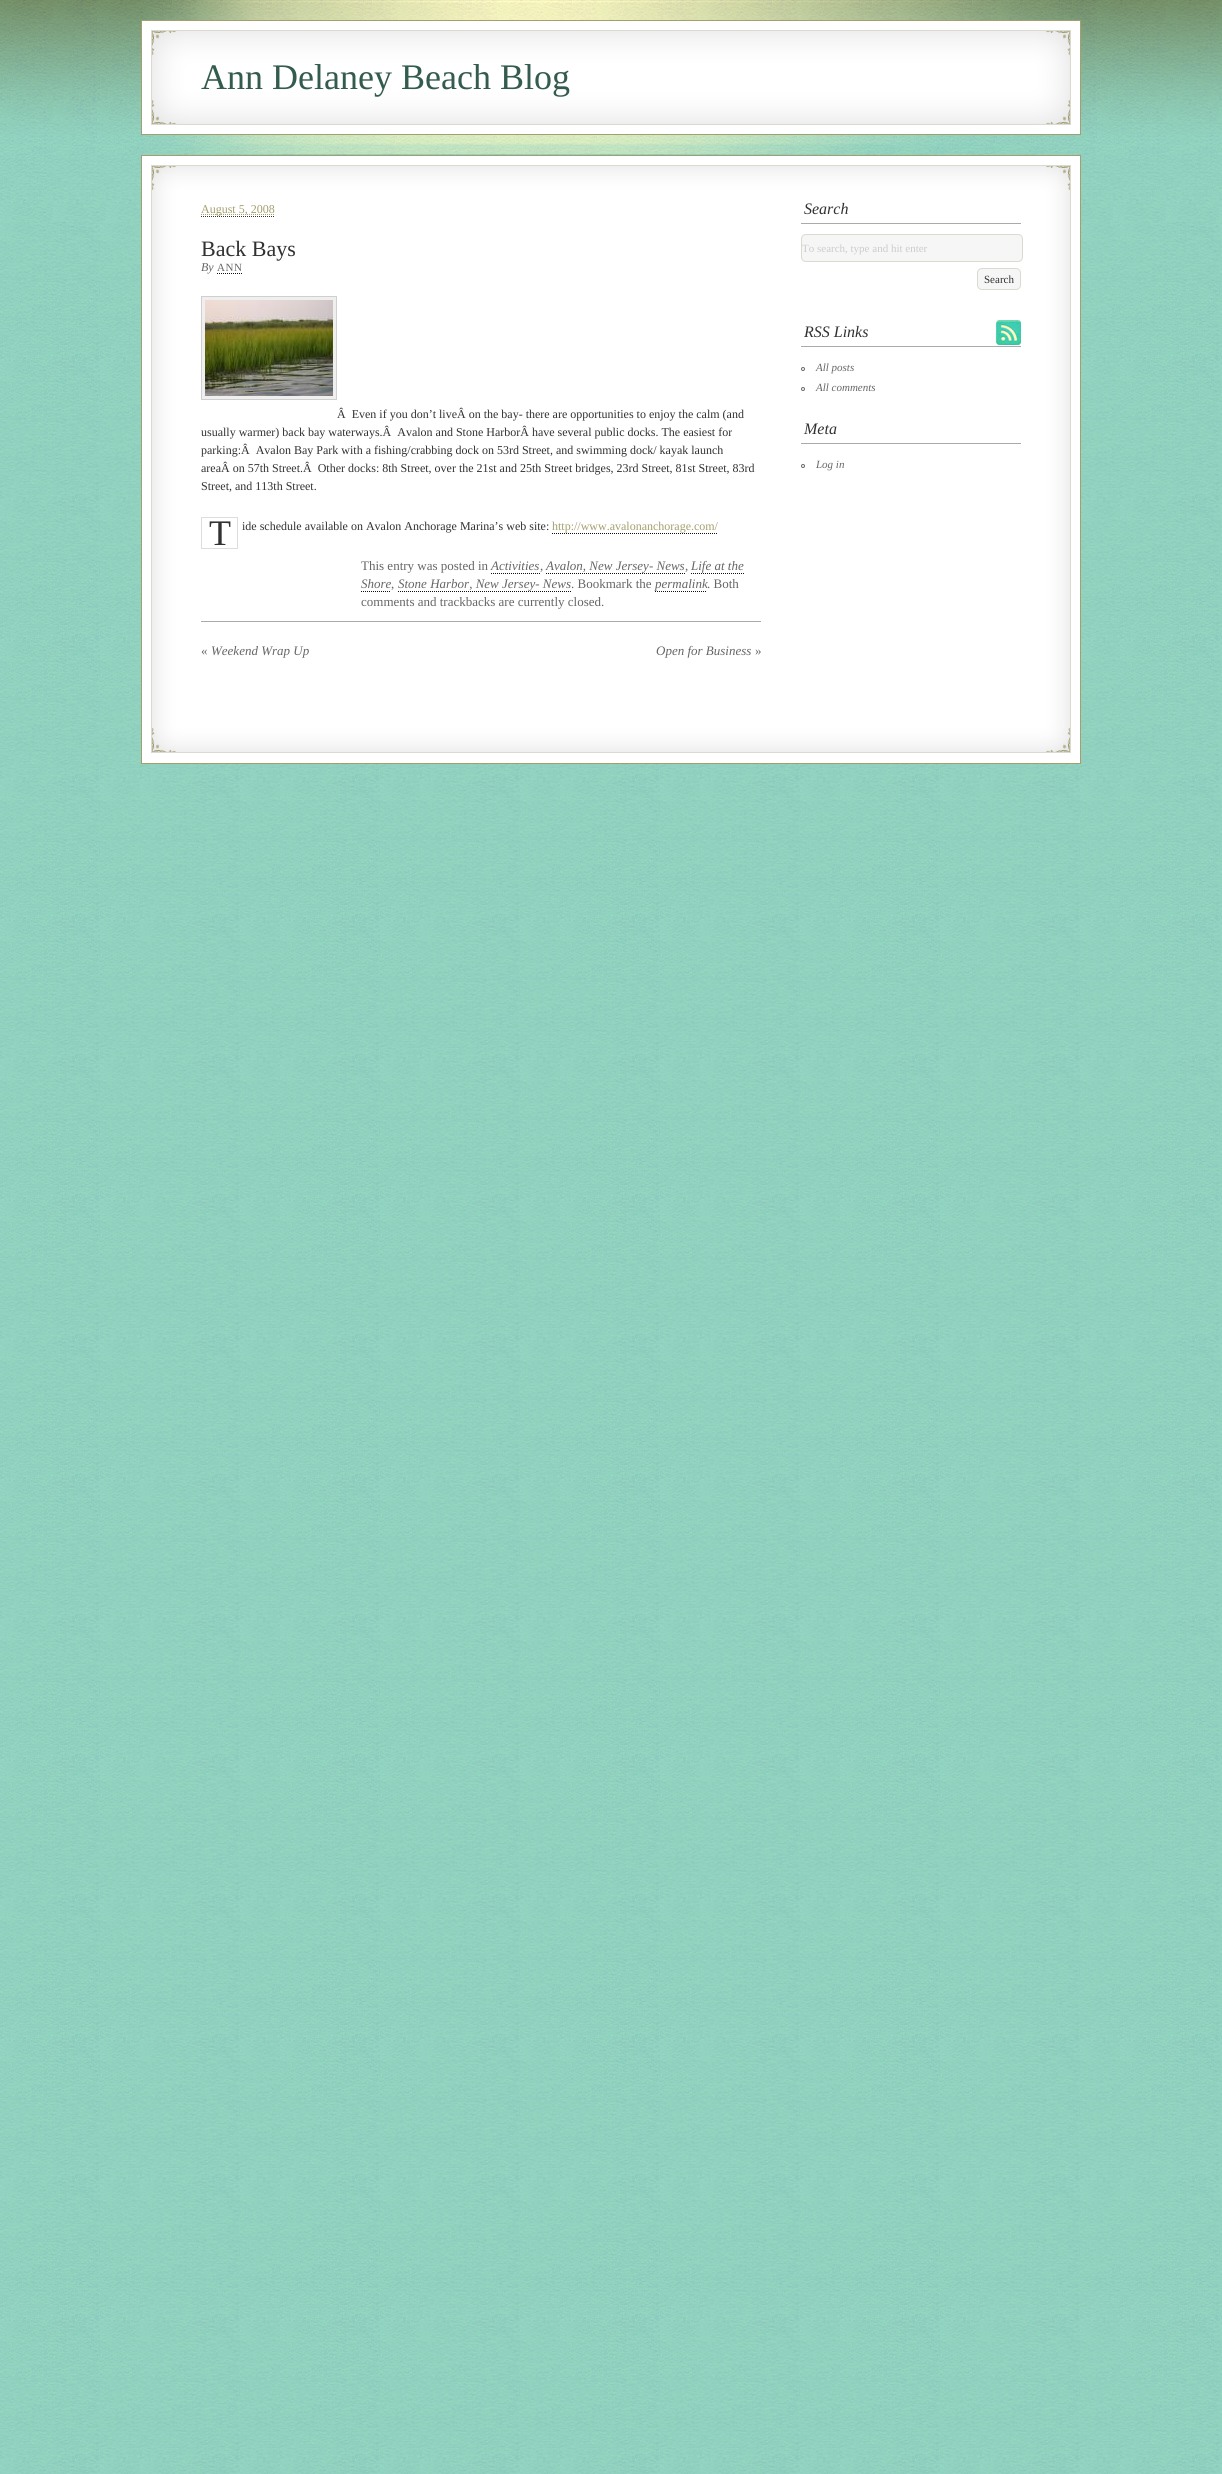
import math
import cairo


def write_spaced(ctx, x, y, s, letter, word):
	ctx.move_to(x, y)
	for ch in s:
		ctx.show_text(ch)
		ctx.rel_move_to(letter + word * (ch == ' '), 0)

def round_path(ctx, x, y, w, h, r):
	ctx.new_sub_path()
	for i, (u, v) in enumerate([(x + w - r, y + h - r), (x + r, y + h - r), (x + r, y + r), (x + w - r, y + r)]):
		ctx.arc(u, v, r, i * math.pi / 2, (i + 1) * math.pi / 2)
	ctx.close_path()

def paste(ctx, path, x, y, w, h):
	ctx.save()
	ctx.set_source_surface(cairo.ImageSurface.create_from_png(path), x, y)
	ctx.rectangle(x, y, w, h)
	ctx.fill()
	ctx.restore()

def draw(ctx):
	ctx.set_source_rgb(1, 1, 1)
	ctx.paint()
	paste(ctx, 'media/1.png', 0, 222, 1222, 2252)
	paste(ctx, 'media/2.png', 0, 0, 1222, 222)
	paste(ctx, 'media/3.png', 72, 0, 1078, 154)
	paste(ctx, 'media/4.png', 141, 20, 940, 115)
	ctx.select_font_face('Liberation Serif')
	ctx.set_font_size(36)
	ctx.set_source_rgb(0.2, 0.357, 0.31)
	ctx.move_to(201, 89)
	ctx.show_text('Ann Delaney Beach Blog')
	paste(ctx, 'media/5.png', 141, 155, 940, 40)
	paste(ctx, 'media/6.png', 141, 195, 940, 509)
	ctx.set_source_rgb(0.667, 0.667, 0.667)
	ctx.rectangle(201, 621, 560, 1)
	ctx.fill()
	ctx.new_path()
	ctx.move_to(201, 214.5)
	ctx.line_to(274.5, 214.5)
	ctx.set_source_rgb(0.643, 0.624, 0.424)
	ctx.set_line_width(1)
	ctx.set_dash([1, 1])
	ctx.stroke()
	ctx.set_font_size(12)
	ctx.move_to(201, 213)
	ctx.show_text('August 5, 2008')
	ctx.new_path()
	ctx.move_to(201, 216.5)
	ctx.line_to(275, 216.5)
	ctx.set_source_rgb(0.2, 0.2, 0.2)
	ctx.stroke()
	ctx.set_font_size(22)
	ctx.set_source_rgb(0.192, 0.192, 0.192)
	ctx.move_to(201, 256)
	ctx.show_text('Back Bays')
	ctx.select_font_face('Liberation Serif', cairo.FONT_SLANT_ITALIC)
	ctx.set_font_size(12)
	ctx.set_source_rgb(0.4, 0.4, 0.4)
	ctx.move_to(201, 271)
	ctx.show_text('By')
	ctx.select_font_face('Liberation Serif')
	ctx.set_font_size(11)
	write_spaced(ctx, 217, 271, 'ANN', 0.5, 0)
	ctx.new_path()
	ctx.move_to(217, 273.5)
	ctx.line_to(242, 273.5)
	ctx.set_source_rgb(0.067, 0.067, 0.067)
	ctx.stroke()
	ctx.set_source_rgb(0.937, 0.937, 0.937)
	ctx.rectangle(201.5, 296.5, 135, 103)
	ctx.fill_preserve()
	ctx.set_source_rgb(0.812, 0.812, 0.812)
	ctx.set_dash([])
	ctx.stroke()
	paste(ctx, 'media/7.png', 205, 300, 128, 96)
	ctx.set_font_size(12)
	ctx.set_source_rgb(0.192, 0.192, 0.192)
	for x, y, s in [
		(337, 418, 'Â  Even if you don’t liveÂ on the bay- there are opportunities to enjoy the calm (and'),
		(201, 436, 'usually warmer) back bay waterways.Â  Avalon and Stone HarborÂ have several public docks. The easiest for'),
		(201, 454, 'parking:Â  Avalon Bay Park with a fishing/crabbing dock on 53rd Street, and swimming dock/ kayak launch'),
		(201, 472, 'areaÂ on 57th Street.Â  Other docks: 8th Street, over the 21st and 25th Street bridges, 23rd Street, 81st Street, 83rd'),
		(201, 490, 'Street, and 113th Street.'),
	]:
		ctx.move_to(x, y)
		ctx.show_text(s)
	ctx.rectangle(201.5, 517.5, 36, 31)
	ctx.set_source_rgb(0.867, 0.867, 0.867)
	ctx.stroke()
	ctx.set_font_size(36)
	ctx.set_source_rgb(0.192, 0.192, 0.192)
	ctx.move_to(209, 545)
	ctx.show_text('T')
	ctx.set_font_size(12)
	ctx.move_to(242, 530)
	ctx.show_text('ide schedule available on Avalon Anchorage Marina’s web site:')
	ctx.set_source_rgb(0.643, 0.624, 0.424)
	ctx.move_to(552, 530)
	ctx.show_text('http://www.avalonanchorage.com/')
	ctx.new_path()
	ctx.move_to(552, 533.5)
	ctx.line_to(718, 533.5)
	ctx.set_source_rgb(0.067, 0.067, 0.067)
	ctx.set_dash([1, 1])
	ctx.stroke()
	ctx.set_font_size(13)
	ctx.set_source_rgb(0.4, 0.4, 0.4)
	ctx.move_to(361, 570)
	ctx.show_text('This entry was posted in')
	ctx.select_font_face('Liberation Serif', cairo.FONT_SLANT_ITALIC)
	ctx.move_to(491, 570)
	ctx.show_text('Activities')
	ctx.select_font_face('Liberation Serif')
	ctx.move_to(540, 570)
	ctx.show_text(',')
	ctx.new_path()
	ctx.move_to(491, 573.5)
	ctx.line_to(540, 573.5)
	ctx.set_source_rgb(0.067, 0.067, 0.067)
	ctx.stroke()
	ctx.select_font_face('Liberation Serif', cairo.FONT_SLANT_ITALIC)
	ctx.set_source_rgb(0.4, 0.4, 0.4)
	ctx.move_to(546, 570)
	ctx.show_text('Avalon, New Jersey- News')
	ctx.select_font_face('Liberation Serif')
	ctx.move_to(685, 570)
	ctx.show_text(',')
	ctx.new_path()
	ctx.move_to(546, 573.5)
	ctx.line_to(685, 573.5)
	ctx.set_source_rgb(0.067, 0.067, 0.067)
	ctx.stroke()
	ctx.new_path()
	ctx.move_to(691, 573.5)
	ctx.line_to(744, 573.5)
	ctx.stroke()
	ctx.select_font_face('Liberation Serif', cairo.FONT_SLANT_ITALIC)
	ctx.set_source_rgb(0.4, 0.4, 0.4)
	ctx.move_to(691, 570)
	ctx.show_text('Life at the')
	ctx.move_to(361, 588)
	ctx.show_text('Shore')
	ctx.select_font_face('Liberation Serif')
	ctx.move_to(391, 588)
	ctx.show_text(',')
	ctx.new_path()
	ctx.move_to(361, 591.5)
	ctx.line_to(391, 591.5)
	ctx.set_source_rgb(0.067, 0.067, 0.067)
	ctx.stroke()
	ctx.new_path()
	ctx.move_to(398, 591.5)
	ctx.line_to(571, 591.5)
	ctx.stroke()
	ctx.select_font_face('Liberation Serif', cairo.FONT_SLANT_ITALIC)
	ctx.set_source_rgb(0.4, 0.4, 0.4)
	ctx.move_to(398, 588)
	ctx.show_text('Stone Harbor, New Jersey- News')
	ctx.select_font_face('Liberation Serif')
	ctx.move_to(571, 588)
	ctx.show_text('. Bookmark the')
	ctx.select_font_face('Liberation Serif', cairo.FONT_SLANT_ITALIC)
	ctx.move_to(655, 588)
	ctx.show_text('permalink')
	ctx.new_path()
	ctx.move_to(655, 591.5)
	ctx.line_to(707, 591.5)
	ctx.set_source_rgb(0.067, 0.067, 0.067)
	ctx.stroke()
	ctx.select_font_face('Liberation Serif')
	ctx.set_source_rgb(0.4, 0.4, 0.4)
	for x, y, s in [
		(707, 588, '. Both'),
		(361, 606, 'comments and trackbacks are currently closed.'),
		(201, 655, '«'),
	]:
		ctx.move_to(x, y)
		ctx.show_text(s)
	ctx.select_font_face('Liberation Serif', cairo.FONT_SLANT_ITALIC)
	ctx.move_to(211, 655)
	ctx.show_text('Weekend Wrap Up')
	ctx.move_to(656, 655)
	ctx.show_text('Open for Business')
	ctx.select_font_face('Liberation Serif')
	ctx.move_to(755, 655)
	ctx.show_text('»')
	ctx.set_source_rgb(0.667, 0.667, 0.667)
	ctx.rectangle(801, 223, 220, 1)
	ctx.fill()
	ctx.select_font_face('Liberation Serif', cairo.FONT_SLANT_ITALIC)
	ctx.set_font_size(16)
	ctx.set_source_rgb(0.192, 0.192, 0.192)
	ctx.move_to(804, 214)
	ctx.show_text('Search')
	ctx.set_source_rgb(0.961, 0.961, 0.961)
	round_path(ctx, 801.5, 234.5, 221, 27, 4.5)
	ctx.fill_preserve()
	ctx.set_source_rgb(0.859, 0.855, 0.808)
	ctx.set_dash([])
	ctx.stroke()
	ctx.select_font_face('Liberation Serif')
	ctx.set_font_size(11)
	ctx.set_source_rgb(0.8, 0.8, 0.8)
	ctx.move_to(802, 252)
	ctx.show_text('To search, type and hit enter')
	ctx.set_source_rgb(0.961, 0.961, 0.961)
	round_path(ctx, 977.5, 268.5, 43, 21, 4.5)
	ctx.fill_preserve()
	ctx.set_source_rgb(0.859, 0.855, 0.808)
	ctx.stroke()
	ctx.set_source_rgb(0.192, 0.192, 0.192)
	ctx.move_to(984, 283)
	ctx.show_text('Search')
	paste(ctx, 'media/8.png', 996, 320, 25, 25)
	ctx.set_source_rgb(0.667, 0.667, 0.667)
	ctx.rectangle(801, 346, 220, 1)
	ctx.fill()
	ctx.select_font_face('Liberation Serif', cairo.FONT_SLANT_ITALIC)
	ctx.set_font_size(16)
	ctx.set_source_rgb(0.192, 0.192, 0.192)
	ctx.move_to(804, 337)
	ctx.show_text('RSS Links')
	ctx.new_path()
	ctx.arc(803, 369, 1.5, 0, 2 * math.pi)
	ctx.set_source_rgb(0.4, 0.4, 0.4)
	ctx.stroke()
	ctx.set_font_size(11)
	ctx.move_to(816, 371)
	ctx.show_text('All posts')
	ctx.new_path()
	ctx.arc(803, 389, 1.5, 0, 2 * math.pi)
	ctx.stroke()
	ctx.move_to(816, 391)
	ctx.show_text('All comments')
	ctx.set_source_rgb(0.667, 0.667, 0.667)
	ctx.rectangle(801, 443, 220, 1)
	ctx.fill()
	ctx.set_font_size(16)
	ctx.set_source_rgb(0.192, 0.192, 0.192)
	ctx.move_to(804, 434)
	ctx.show_text('Meta')
	ctx.new_path()
	ctx.arc(803, 466, 1.5, 0, 2 * math.pi)
	ctx.set_source_rgb(0.4, 0.4, 0.4)
	ctx.stroke()
	ctx.set_font_size(11)
	ctx.move_to(816, 468)
	ctx.show_text('Log in')
	paste(ctx, 'media/9.png', 141, 704, 940, 60)


surface = cairo.ImageSurface(cairo.FORMAT_RGB24, 1222, 2474)
ctx = cairo.Context(surface)
options = cairo.FontOptions()
options.set_hint_metrics(cairo.HINT_METRICS_OFF)
options.set_hint_style(cairo.HINT_STYLE_NONE)
ctx.set_font_options(options)
ctx.set_miter_limit(4)
draw(ctx)
surface.write_to_png('image.png')
